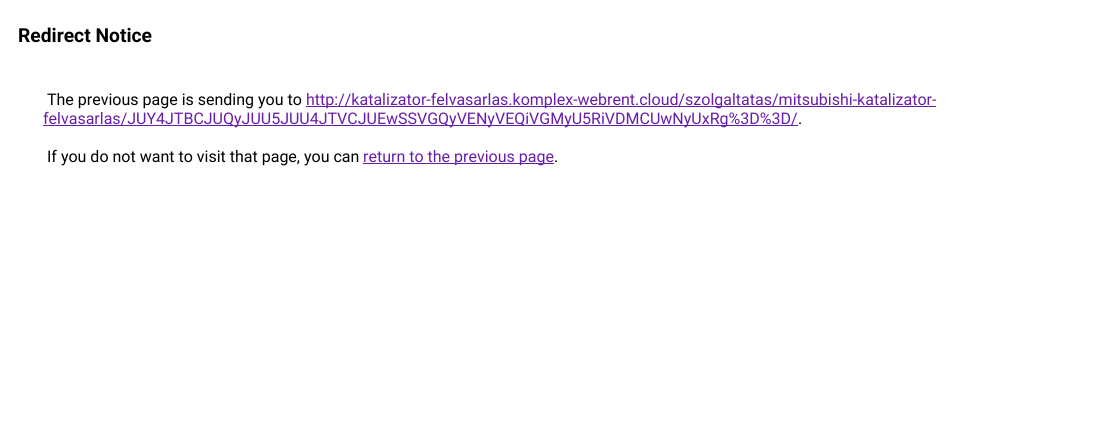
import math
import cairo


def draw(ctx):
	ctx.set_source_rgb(1, 1, 1)
	ctx.paint()
	ctx.select_font_face('Roboto', cairo.FONT_SLANT_NORMAL, cairo.FONT_WEIGHT_BOLD)
	ctx.set_font_size(19.25)
	ctx.set_source_rgb(0, 0, 0)
	ctx.move_to(18, 42)
	ctx.show_text('Redirect Notice')
	ctx.select_font_face('Roboto')
	ctx.set_font_size(16)
	ctx.move_to(47, 105)
	ctx.show_text('The previous page is sending you to')
	ctx.set_source_rgb(0.408, 0.114, 0.659)
	ctx.rectangle(306, 106, 630, 1)
	ctx.fill()
	ctx.move_to(306, 105)
	ctx.show_text('http://katalizator-felvasarlas.komplex-webrent.cloud/szolgaltatas/mitsubishi-katalizator-')
	ctx.rectangle(43, 125, 755, 1)
	ctx.fill()
	ctx.move_to(43, 124)
	ctx.show_text('felvasarlas/JUY4JTBCJUQyJUU5JUU4JTVCJUEwSSVGQyVENyVEQiVGMyU5RiVDMCUwNyUxRg%3D%3D/')
	ctx.set_source_rgb(0, 0, 0)
	ctx.move_to(798, 124)
	ctx.show_text('.')
	ctx.move_to(47, 162)
	ctx.show_text('If you do not want to visit that page, you can')
	ctx.set_source_rgb(0.408, 0.114, 0.659)
	ctx.rectangle(363, 163, 191, 1)
	ctx.fill()
	ctx.move_to(363, 162)
	ctx.show_text('return to the previous page')
	ctx.set_source_rgb(0, 0, 0)
	ctx.move_to(554, 162)
	ctx.show_text('.')


surface = cairo.ImageSurface(cairo.FORMAT_RGB24, 1100, 436)
ctx = cairo.Context(surface)
options = cairo.FontOptions()
options.set_hint_metrics(cairo.HINT_METRICS_OFF)
options.set_hint_style(cairo.HINT_STYLE_NONE)
ctx.set_font_options(options)
ctx.set_miter_limit(4)
draw(ctx)
surface.write_to_png('image.png')
